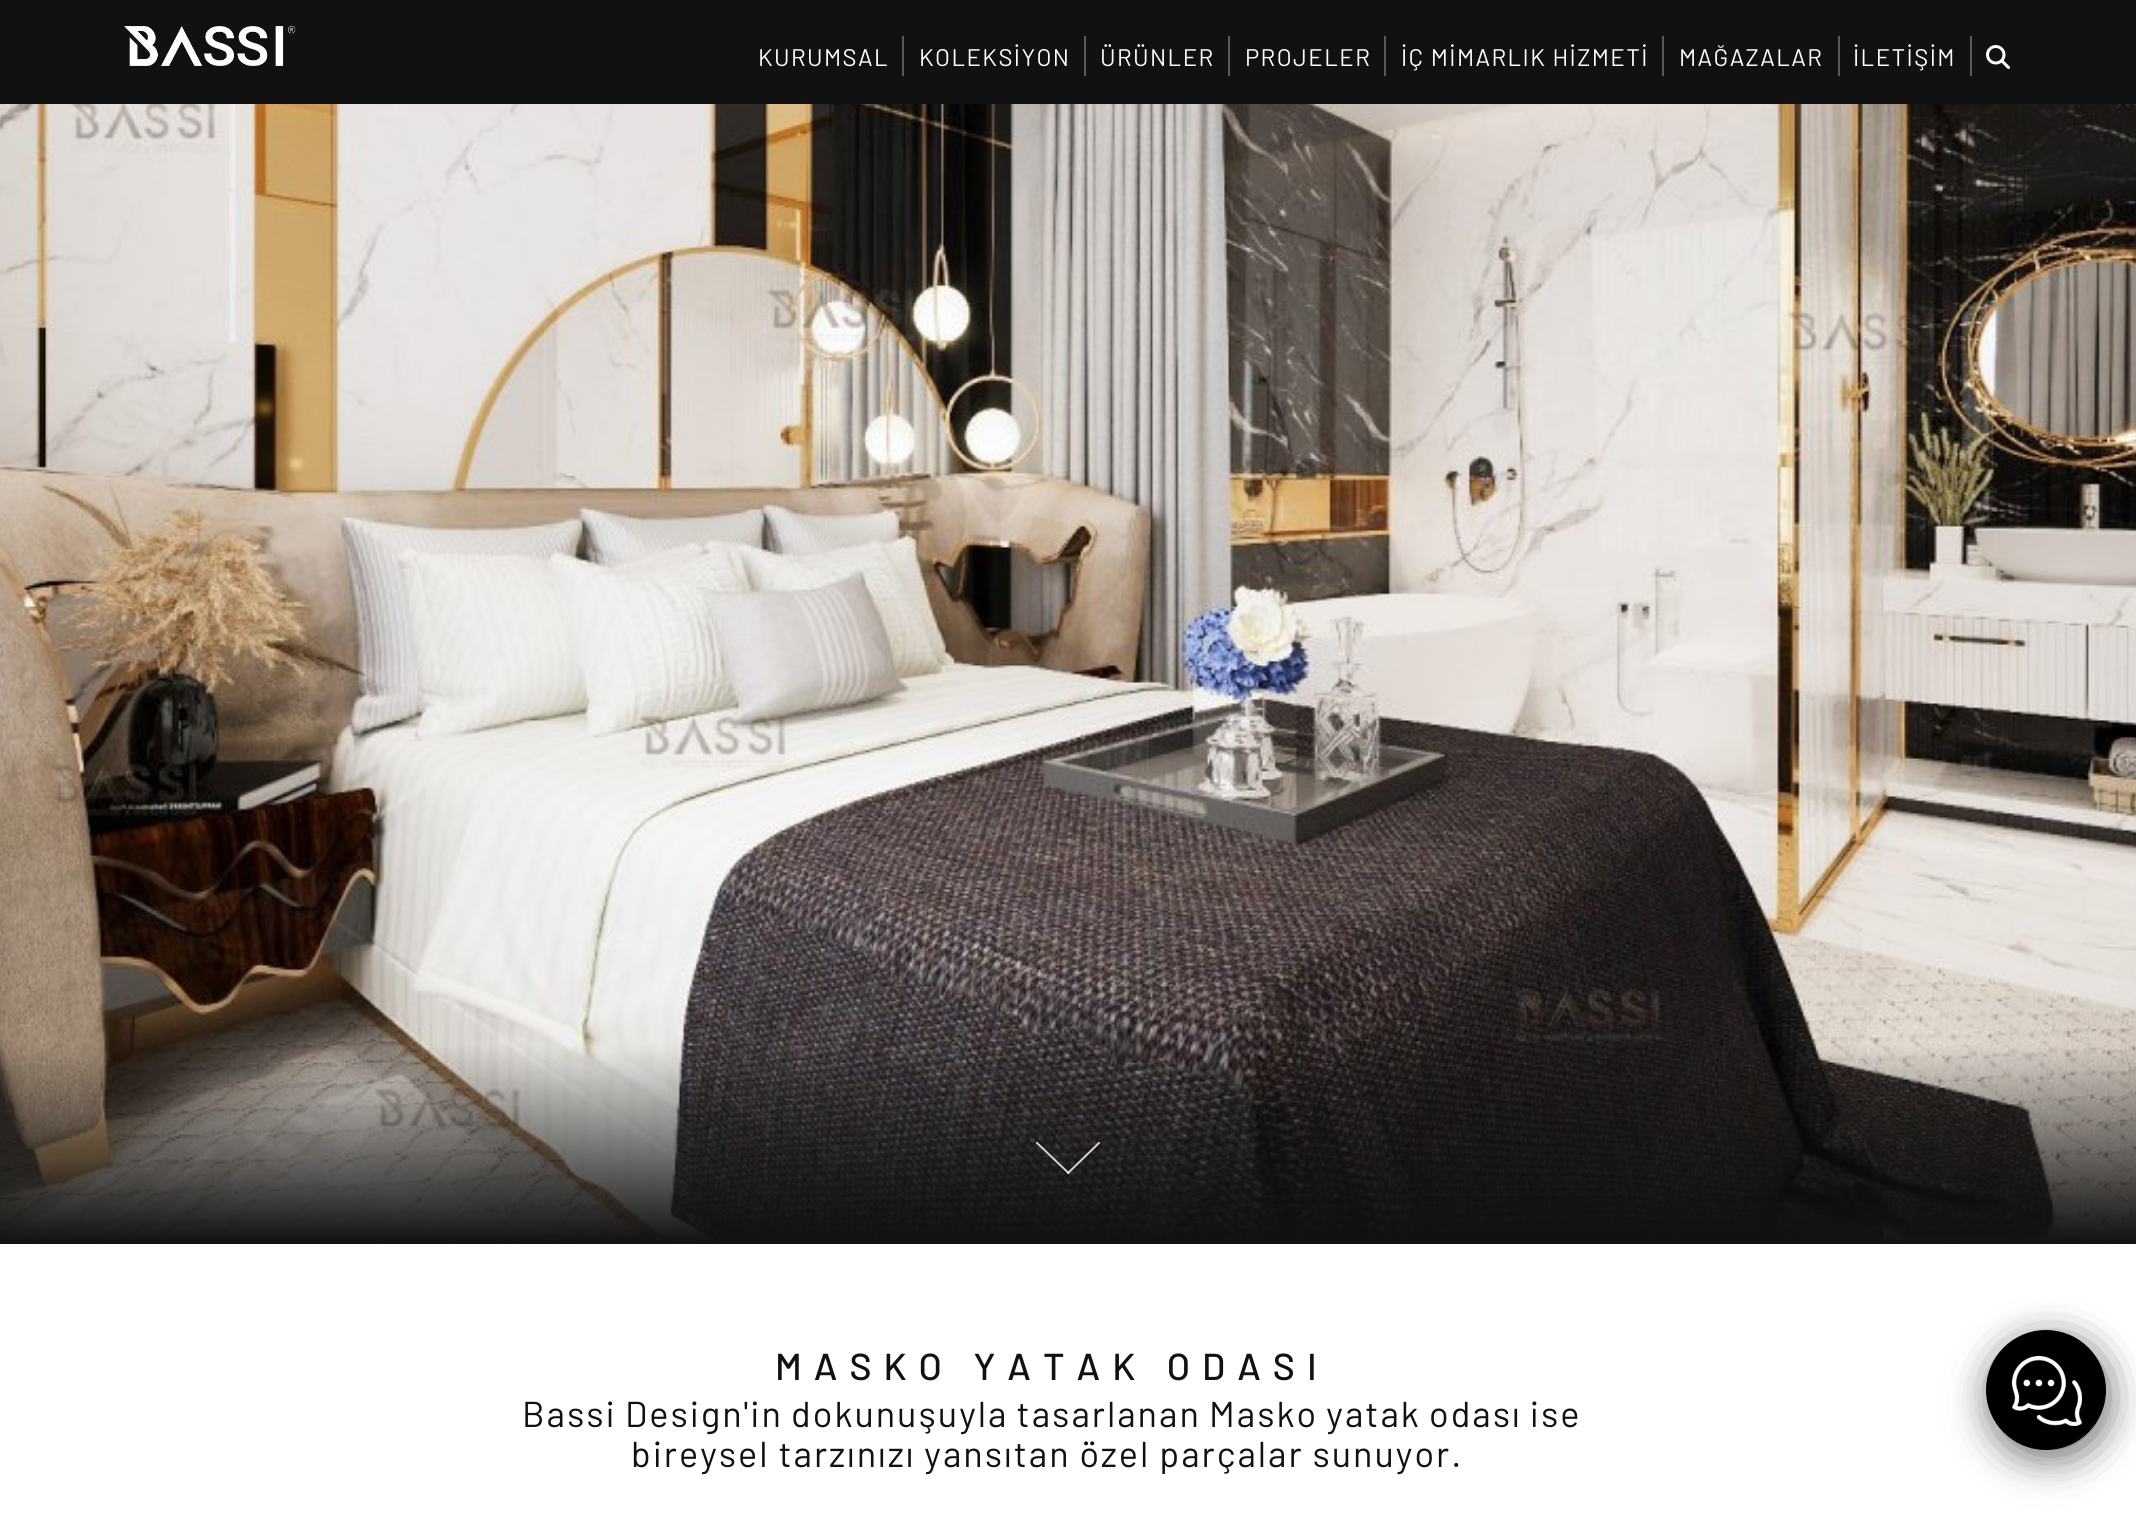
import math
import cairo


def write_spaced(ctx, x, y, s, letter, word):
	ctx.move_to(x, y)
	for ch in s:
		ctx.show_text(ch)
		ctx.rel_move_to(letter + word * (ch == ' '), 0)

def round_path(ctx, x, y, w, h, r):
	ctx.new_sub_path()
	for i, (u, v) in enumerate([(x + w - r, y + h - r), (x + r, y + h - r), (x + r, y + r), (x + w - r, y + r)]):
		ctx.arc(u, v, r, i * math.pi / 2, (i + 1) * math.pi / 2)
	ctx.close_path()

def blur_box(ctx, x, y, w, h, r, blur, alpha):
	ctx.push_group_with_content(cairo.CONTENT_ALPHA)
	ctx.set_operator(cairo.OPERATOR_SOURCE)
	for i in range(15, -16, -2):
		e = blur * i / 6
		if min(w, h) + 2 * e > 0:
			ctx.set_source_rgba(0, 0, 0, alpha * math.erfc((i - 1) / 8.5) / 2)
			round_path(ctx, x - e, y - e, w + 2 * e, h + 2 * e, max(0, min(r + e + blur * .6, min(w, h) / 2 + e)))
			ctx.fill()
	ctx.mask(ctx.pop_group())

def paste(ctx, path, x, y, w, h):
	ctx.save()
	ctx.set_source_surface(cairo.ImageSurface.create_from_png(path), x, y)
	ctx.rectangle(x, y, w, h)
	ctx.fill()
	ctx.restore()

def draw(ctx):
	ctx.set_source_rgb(1, 1, 1)
	ctx.paint()
	ctx.set_source_rgb(0.067, 0.067, 0.067)
	ctx.rectangle(0, 0, 2136, 104)
	ctx.fill()
	paste(ctx, 'media/1.png', 124, 26, 172, 40)
	ctx.select_font_face('Barlow')
	ctx.set_font_size(24)
	ctx.set_source_rgb(1, 1, 1)
	write_spaced(ctx, 758, 66, 'KURUMSAL', 1.4, 0)
	ctx.set_source_rgb(0.357, 0.357, 0.357)
	ctx.rectangle(902, 36, 2, 40)
	ctx.fill()
	ctx.set_source_rgb(1, 1, 1)
	write_spaced(ctx, 919, 66, 'KOLEKSİYON', 1.4, 0)
	ctx.set_source_rgb(0.357, 0.357, 0.357)
	ctx.rectangle(1084, 36, 2, 40)
	ctx.fill()
	ctx.set_source_rgb(1, 1, 1)
	write_spaced(ctx, 1100, 66, 'ÜRÜNLER', 1.4, 0)
	ctx.set_source_rgb(0.357, 0.357, 0.357)
	ctx.rectangle(1228, 36, 2, 40)
	ctx.fill()
	ctx.set_source_rgb(1, 1, 1)
	write_spaced(ctx, 1245, 66, 'PROJELER', 1.4, 0)
	ctx.set_source_rgb(0.357, 0.357, 0.357)
	ctx.rectangle(1384, 36, 2, 40)
	ctx.fill()
	ctx.set_source_rgb(1, 1, 1)
	write_spaced(ctx, 1401, 66, 'İÇ MİMARLIK HİZMETİ', 1.4, 0)
	ctx.set_source_rgb(0.357, 0.357, 0.357)
	ctx.rectangle(1662, 36, 2, 40)
	ctx.fill()
	ctx.set_source_rgb(1, 1, 1)
	write_spaced(ctx, 1679, 66, 'MAĞAZALAR', 1.4, 0)
	ctx.set_source_rgb(0.357, 0.357, 0.357)
	ctx.rectangle(1838, 36, 2, 40)
	ctx.fill()
	ctx.set_source_rgb(1, 1, 1)
	write_spaced(ctx, 1853, 66, 'İLETİŞİM', 1.4, 0)
	ctx.set_source_rgb(0.357, 0.357, 0.357)
	ctx.rectangle(1970, 36, 2, 40)
	ctx.fill()
	paste(ctx, 'media/2.png', 1986, 45, 24, 24)
	paste(ctx, 'media/3.png', 0, 104, 2136, 1140)
	ctx.save()
	ctx.rectangle(1036, 1142, 64, 32)
	ctx.clip()
	ctx.new_path()
	ctx.move_to(1036, 1142)
	ctx.line_to(1069, 1173.5)
	ctx.set_source_rgba(1, 1, 1, 0.8)
	ctx.stroke()
	ctx.new_path()
	ctx.move_to(1067.5, 1173.5)
	ctx.line_to(1100, 1142)
	ctx.stroke()
	ctx.restore()
	ctx.select_font_face('Barlow Medium')
	ctx.set_font_size(37.5)
	ctx.set_source_rgb(0.067, 0.067, 0.067)
	write_spaced(ctx, 775, 1380, 'MASKO YATAK ODASI', 12, 0)
	ctx.select_font_face('Barlow')
	ctx.set_font_size(36)
	write_spaced(ctx, 522, 1427, 'Bassi Design\'in dokunuşuyla tasarlanan Masko yatak odası ise', 2, -1)
	write_spaced(ctx, 631, 1467, 'bireysel tarzınızı yansıtan özel parçalar sunuyor.', 2, -0.25)
	ctx.set_source_rgb(0, 0, 0)
	blur_box(ctx, 1990, 1346, 112, 112, 56, 24, 0.3)
	blur_box(ctx, 2010, 1356, 82, 82, 41, 24, 0.3)
	blur_box(ctx, 2010, 1356, 82, 82, 41, 24, 0.3)
	blur_box(ctx, 2010, 1356, 82, 82, 41, 24, 0.3)
	ctx.set_source_rgb(0, 0, 0)
	ctx.arc(2046, 1390, 60, 0, 2 * math.pi)
	ctx.fill()
	paste(ctx, 'media/4.png', 2011, 1355, 71, 71)


surface = cairo.ImageSurface(cairo.FORMAT_RGB24, 2136, 1520)
ctx = cairo.Context(surface)
options = cairo.FontOptions()
options.set_hint_metrics(cairo.HINT_METRICS_OFF)
options.set_hint_style(cairo.HINT_STYLE_NONE)
ctx.set_font_options(options)
ctx.set_miter_limit(4)
draw(ctx)
surface.write_to_png('image.png')
